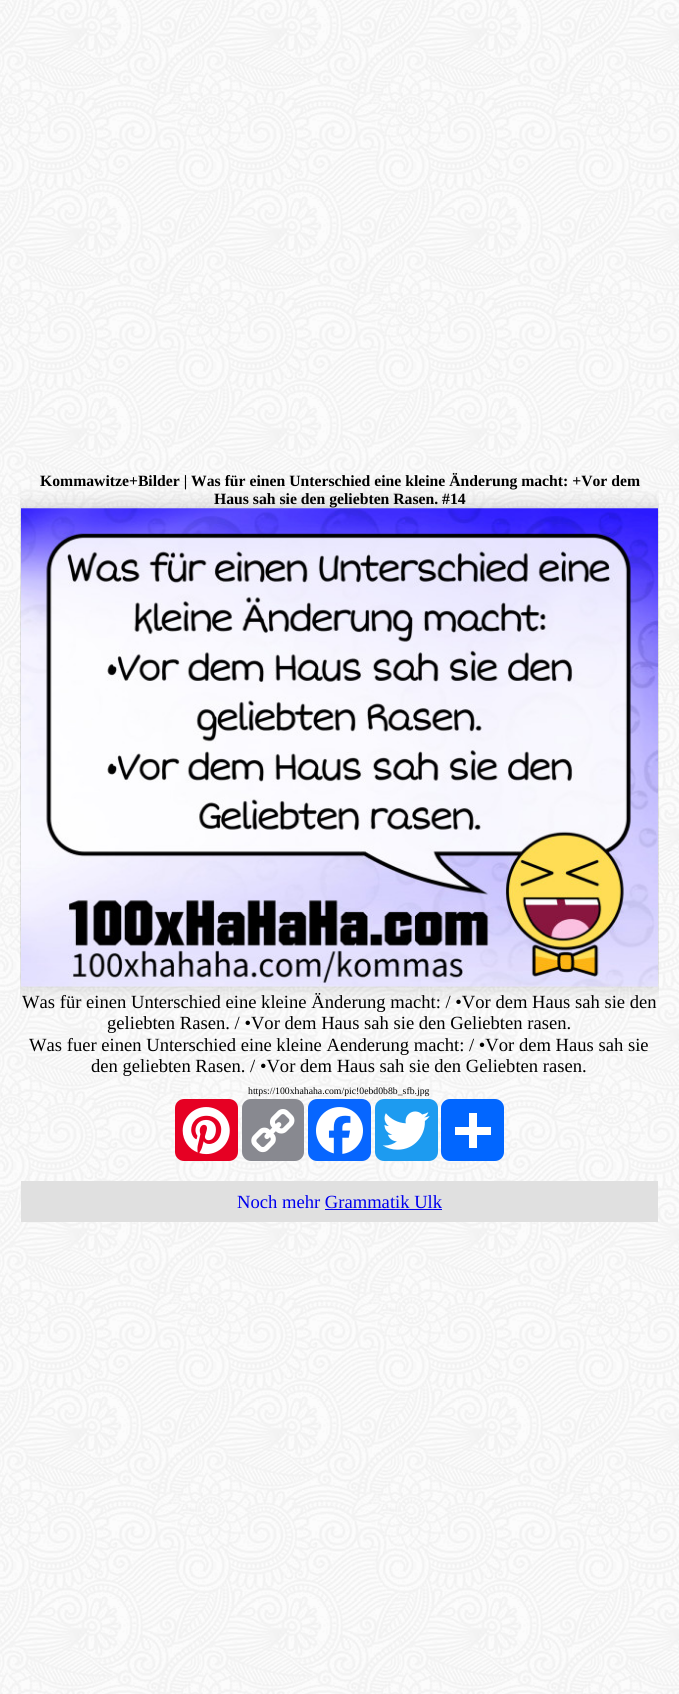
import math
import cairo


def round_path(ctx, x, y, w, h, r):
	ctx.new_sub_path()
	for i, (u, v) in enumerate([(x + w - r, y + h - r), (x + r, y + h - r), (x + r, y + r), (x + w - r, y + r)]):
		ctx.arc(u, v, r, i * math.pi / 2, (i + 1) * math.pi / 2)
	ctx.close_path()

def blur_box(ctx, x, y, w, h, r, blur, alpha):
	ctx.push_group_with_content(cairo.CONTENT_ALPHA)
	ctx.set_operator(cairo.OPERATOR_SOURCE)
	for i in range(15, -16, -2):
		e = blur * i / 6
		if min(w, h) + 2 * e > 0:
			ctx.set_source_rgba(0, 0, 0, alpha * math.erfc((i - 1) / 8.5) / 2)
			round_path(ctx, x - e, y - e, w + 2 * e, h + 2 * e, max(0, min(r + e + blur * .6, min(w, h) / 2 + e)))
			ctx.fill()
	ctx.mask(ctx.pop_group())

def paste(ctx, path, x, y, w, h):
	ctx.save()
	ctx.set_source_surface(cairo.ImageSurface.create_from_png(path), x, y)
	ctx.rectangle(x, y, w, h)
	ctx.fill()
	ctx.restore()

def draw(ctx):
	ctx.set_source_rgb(1, 1, 1)
	ctx.paint()
	paste(ctx, 'media/1.png', 0, 0, 679, 1694)
	ctx.select_font_face('Liberation Serif', cairo.FONT_SLANT_NORMAL, cairo.FONT_WEIGHT_BOLD)
	ctx.set_font_size(15.7)
	ctx.set_source_rgb(0, 0, 0)
	ctx.move_to(40, 486)
	ctx.show_text('Kommawitze+Bilder | Was für einen Unterschied eine kleine Änderung macht: +Vor dem')
	ctx.move_to(214, 504)
	ctx.show_text('Haus sah sie den geliebten Rasen. #14')
	ctx.save()
	ctx.rectangle(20, 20, 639, 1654)
	ctx.clip()
	ctx.set_source_rgb(0, 0, 0)
	blur_box(ctx, 21, 508, 637, 478, 0, 11.5, 0.2)
	ctx.restore()
	paste(ctx, 'media/2.png', 21, 508, 637, 479)
	ctx.select_font_face('Liberation Serif')
	ctx.set_font_size(18.6)
	for x, y, s in [
		(22, 1008, 'Was für einen Unterschied eine kleine Änderung macht: / •Vor dem Haus sah sie den'),
		(107, 1029, 'geliebten Rasen. / •Vor dem Haus sah sie den Geliebten rasen.'),
		(29, 1051, 'Was fuer einen Unterschied eine kleine Aenderung macht: / •Vor dem Haus sah sie'),
		(91, 1072, 'den geliebten Rasen. / •Vor dem Haus sah sie den Geliebten rasen.'),
	]:
		ctx.move_to(x, y)
		ctx.show_text(s)
	ctx.set_font_size(9.75)
	ctx.move_to(248, 1094)
	ctx.show_text('https://100xhahaha.com/pic!0ebd0b8b_sfb.jpg')
	ctx.set_source_rgb(0.902, 0, 0.137)
	round_path(ctx, 175, 1099, 63, 62, 9)
	ctx.fill()
	paste(ctx, 'media/3.png', 182, 1107, 48, 48)
	ctx.set_source_rgb(0.533, 0.537, 0.565)
	round_path(ctx, 242, 1099, 62, 62, 9)
	ctx.fill()
	paste(ctx, 'media/4.png', 251, 1109, 44, 44)
	ctx.set_source_rgb(0.031, 0.4, 1)
	round_path(ctx, 308, 1099, 63, 62, 9)
	ctx.fill()
	paste(ctx, 'media/5.png', 316, 1107, 47, 47)
	ctx.set_source_rgb(0.114, 0.608, 0.941)
	round_path(ctx, 375, 1099, 63, 62, 9)
	ctx.fill()
	paste(ctx, 'media/6.png', 382, 1111, 48, 39)
	ctx.set_source_rgb(0.004, 0.4, 1)
	round_path(ctx, 441, 1099, 63, 62, 9)
	ctx.fill()
	ctx.set_source_rgb(1, 1, 1)
	ctx.rectangle(469, 1113, 8, 35)
	ctx.rectangle(455, 1127, 36, 8)
	ctx.fill()
	ctx.set_source_rgb(0.878, 0.878, 0.878)
	ctx.rectangle(21, 1181, 637, 41)
	ctx.fill()
	ctx.set_font_size(18.6)
	ctx.set_source_rgb(0, 0, 0.933)
	ctx.move_to(237, 1208)
	ctx.show_text('Noch mehr Grammatik Ulk')
	ctx.rectangle(325, 1209, 117, 1)
	ctx.fill()


surface = cairo.ImageSurface(cairo.FORMAT_RGB24, 679, 1694)
ctx = cairo.Context(surface)
options = cairo.FontOptions()
options.set_hint_metrics(cairo.HINT_METRICS_OFF)
options.set_hint_style(cairo.HINT_STYLE_NONE)
ctx.set_font_options(options)
ctx.set_miter_limit(4)
draw(ctx)
surface.write_to_png('image.png')
